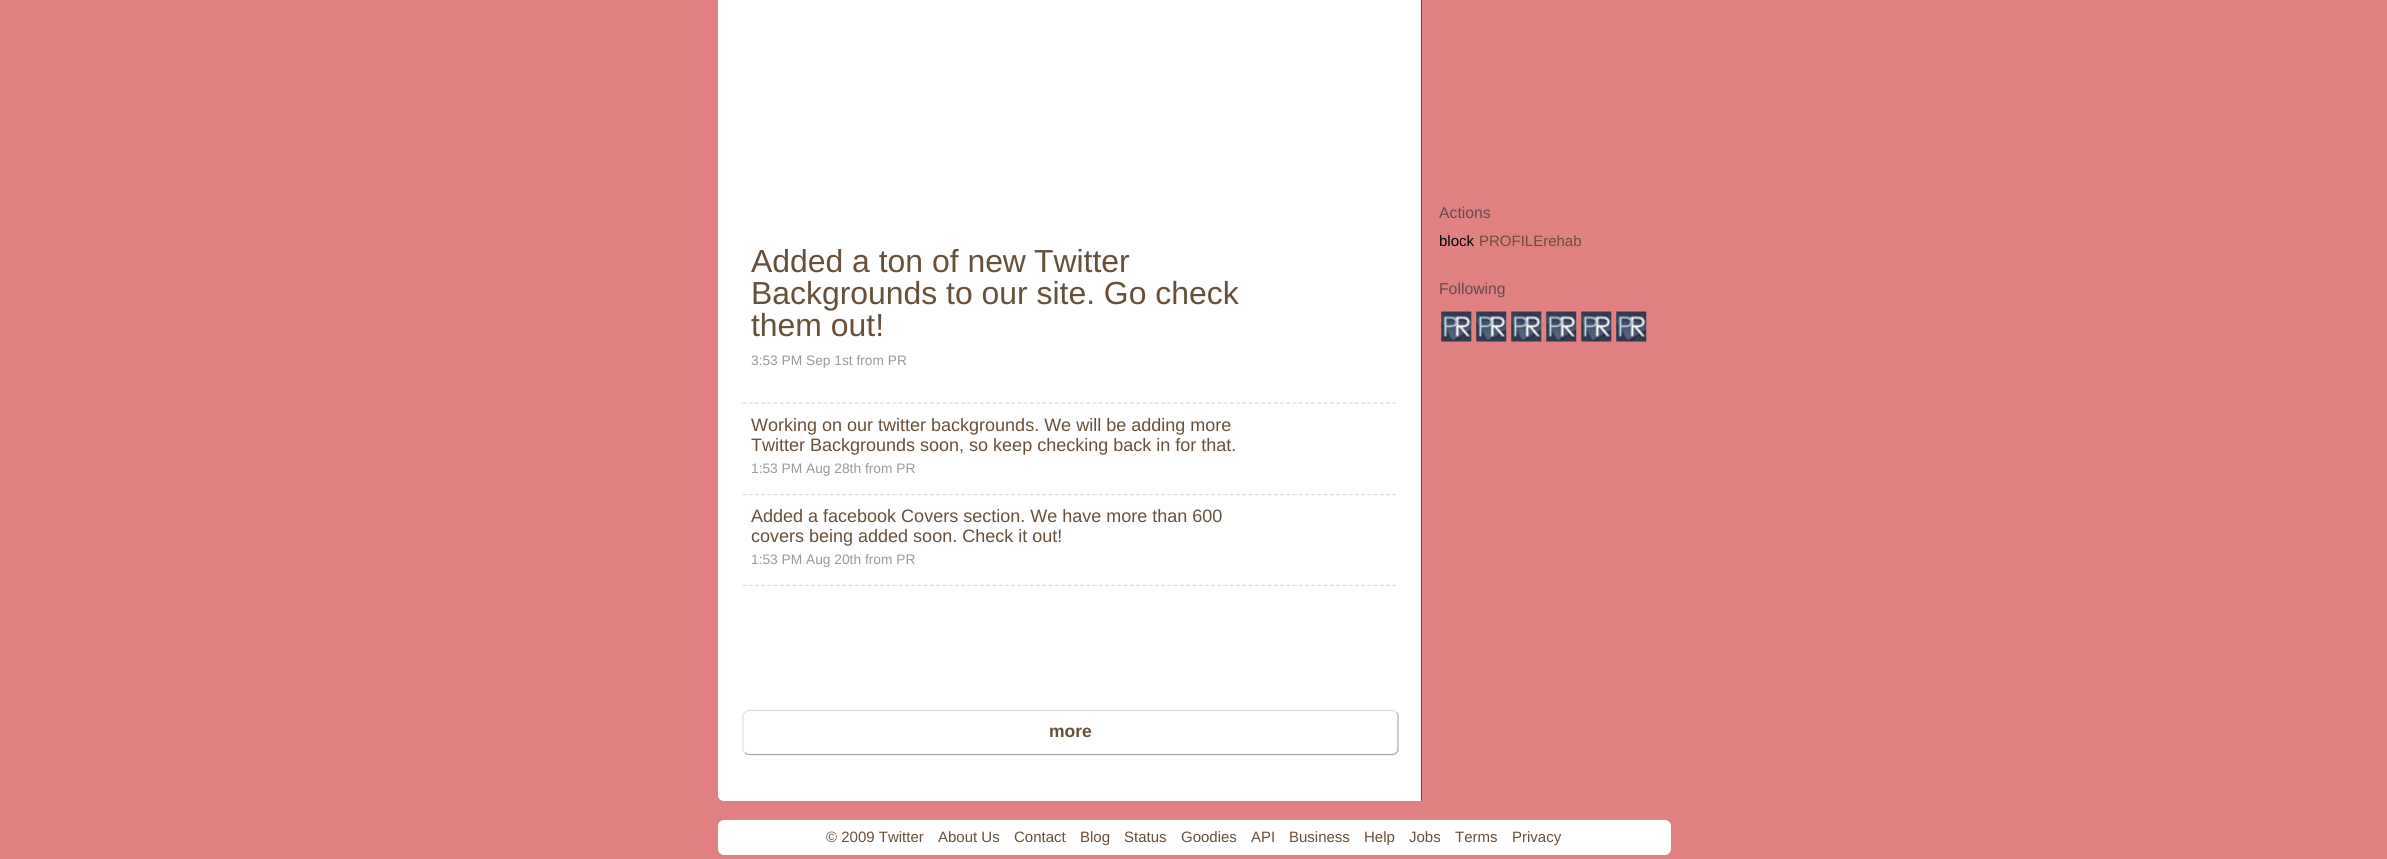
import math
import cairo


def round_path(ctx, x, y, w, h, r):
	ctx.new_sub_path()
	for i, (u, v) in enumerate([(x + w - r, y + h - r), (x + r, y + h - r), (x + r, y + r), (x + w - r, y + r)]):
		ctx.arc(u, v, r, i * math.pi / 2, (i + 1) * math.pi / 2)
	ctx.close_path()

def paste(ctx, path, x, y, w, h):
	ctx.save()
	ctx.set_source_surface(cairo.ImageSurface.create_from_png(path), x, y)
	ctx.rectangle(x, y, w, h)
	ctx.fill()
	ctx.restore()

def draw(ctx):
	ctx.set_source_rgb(0.878, 0.502, 0.506)
	ctx.paint()
	ctx.set_source_rgb(1, 1, 1)
	ctx.new_path()
	ctx.move_to(724, -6)
	ctx.line_to(1421, -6)
	ctx.line_to(1421, 801)
	ctx.line_to(724, 801)
	ctx.curve_to(720.5, 801, 718, 798.5, 718, 795)
	ctx.line_to(718, 0)
	ctx.curve_to(718, -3.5, 720.5, -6, 724, -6)
	ctx.close_path()
	ctx.fill()
	ctx.new_path()
	ctx.move_to(742.5, 403)
	ctx.line_to(1396, 403)
	ctx.set_source_rgb(0.824, 0.855, 0.855)
	ctx.set_line_width(1.2)
	ctx.set_dash([3.75, 2.5])
	ctx.stroke()
	ctx.save()
	ctx.rectangle(751, 249, 525, 126)
	ctx.clip()
	ctx.select_font_face('Liberation Sans')
	ctx.set_font_size(31.9)
	ctx.set_source_rgb(0.404, 0.314, 0.227)
	ctx.move_to(751, 272)
	ctx.show_text('Added a ton of new')
	ctx.restore()
	ctx.select_font_face('Liberation Sans')
	ctx.set_font_size(31.9)
	ctx.set_source_rgb(0.404, 0.314, 0.227)
	for x, y, s in [
		(1034, 272, 'Twitter'),
		(751, 304, 'Backgrounds to our site. Go check'),
		(751, 336, 'them out!'),
	]:
		ctx.move_to(x, y)
		ctx.show_text(s)
	ctx.set_font_size(13.75)
	ctx.set_source_rgb(0.6, 0.6, 0.6)
	ctx.move_to(751, 365)
	ctx.show_text('3:53 PM Sep 1st from PR')
	ctx.new_path()
	ctx.move_to(742.5, 494.5)
	ctx.line_to(1396, 494.5)
	ctx.set_source_rgb(0.824, 0.855, 0.855)
	ctx.stroke()
	ctx.set_font_size(18)
	ctx.set_source_rgb(0.404, 0.314, 0.227)
	ctx.move_to(751, 431)
	ctx.show_text('Working on our twitter backgrounds. We will be adding more')
	ctx.move_to(751, 451)
	ctx.show_text('Twitter Backgrounds soon, so keep checking back in for that.')
	ctx.set_font_size(13.75)
	ctx.set_source_rgb(0.6, 0.6, 0.6)
	ctx.move_to(751, 473)
	ctx.show_text('1:53 PM Aug 28th from PR')
	ctx.new_path()
	ctx.move_to(742.5, 585.5)
	ctx.line_to(1396, 585.5)
	ctx.set_source_rgb(0.824, 0.855, 0.855)
	ctx.stroke()
	ctx.set_font_size(18)
	ctx.set_source_rgb(0.404, 0.314, 0.227)
	ctx.move_to(751, 522)
	ctx.show_text('Added a facebook Covers section. We have more than 600')
	ctx.move_to(751, 542)
	ctx.show_text('covers being added soon. Check it out!')
	ctx.set_font_size(13.75)
	ctx.set_source_rgb(0.6, 0.6, 0.6)
	ctx.move_to(751, 564)
	ctx.show_text('1:53 PM Aug 20th from PR')
	ctx.new_path()
	ctx.move_to(1396.5, 712.5)
	ctx.curve_to(1397.5, 713.5, 1398, 715, 1398, 716)
	ctx.line_to(1398, 749)
	ctx.curve_to(1398, 750, 1397.5, 751.5, 1396.5, 752.5)
	ctx.curve_to(1395.5, 754, 1394, 754.5, 1392.5, 754.5)
	ctx.line_to(749, 754.5)
	ctx.curve_to(747.5, 754.5, 746, 754, 745, 752.5)
	ctx.set_source_rgb(0.667, 0.667, 0.667)
	ctx.set_dash([])
	ctx.stroke()
	ctx.new_path()
	ctx.move_to(745, 752.5)
	ctx.curve_to(743.5, 751.5, 743, 750, 743, 749)
	ctx.line_to(743, 716)
	ctx.curve_to(743, 715, 743.5, 713.5, 745, 712.5)
	ctx.curve_to(746, 711, 747.5, 710.5, 749, 710.5)
	ctx.line_to(1392.5, 710.5)
	ctx.curve_to(1394, 710.5, 1395.5, 711, 1396.5, 712.5)
	ctx.set_source_rgb(0.867, 0.867, 0.867)
	ctx.stroke()
	ctx.select_font_face('Liberation Sans', cairo.FONT_SLANT_NORMAL, cairo.FONT_WEIGHT_BOLD)
	ctx.set_font_size(17.5)
	ctx.set_source_rgb(0.404, 0.314, 0.227)
	ctx.move_to(1049, 737)
	ctx.show_text('more')
	ctx.rectangle(1421, 0, 1, 801)
	ctx.fill()
	ctx.select_font_face('Liberation Sans')
	ctx.set_font_size(15.75)
	ctx.set_source_rgb(0.404, 0.29, 0.29)
	ctx.move_to(1439, 218)
	ctx.show_text('Actions')
	ctx.set_font_size(15)
	ctx.set_source_rgb(0, 0, 0)
	ctx.move_to(1439, 246)
	ctx.show_text('block')
	ctx.set_source_rgb(0.404, 0.314, 0.227)
	ctx.move_to(1479, 246)
	ctx.show_text('PROFILErehab')
	ctx.set_font_size(15.75)
	ctx.set_source_rgb(0.404, 0.29, 0.29)
	ctx.move_to(1439, 294)
	ctx.show_text('Following')
	paste(ctx, 'media/1.png', 1441, 311, 31, 31)
	paste(ctx, 'media/1.png', 1476, 311, 31, 31)
	paste(ctx, 'media/2.png', 1511, 311, 31, 31)
	paste(ctx, 'media/3.png', 1546, 311, 31, 31)
	paste(ctx, 'media/2.png', 1581, 311, 31, 31)
	paste(ctx, 'media/2.png', 1616, 311, 31, 31)
	ctx.set_source_rgb(1, 1, 1)
	round_path(ctx, 718, 820, 953, 35, 6)
	ctx.fill()
	ctx.set_font_size(15)
	ctx.set_source_rgb(0.404, 0.314, 0.227)
	for x, y, s in [
		(826, 842, '© 2009 Twitter'),
		(938, 842, 'About Us'),
		(1014, 842, 'Contact'),
		(1080, 842, 'Blog'),
		(1124, 842, 'Status'),
		(1181, 842, 'Goodies'),
		(1251, 842, 'API'),
		(1289, 842, 'Business'),
		(1364, 842, 'Help'),
		(1409, 842, 'Jobs'),
		(1455, 842, 'Terms'),
		(1512, 842, 'Privacy'),
	]:
		ctx.move_to(x, y)
		ctx.show_text(s)


surface = cairo.ImageSurface(cairo.FORMAT_RGB24, 2387, 859)
ctx = cairo.Context(surface)
options = cairo.FontOptions()
options.set_hint_metrics(cairo.HINT_METRICS_OFF)
options.set_hint_style(cairo.HINT_STYLE_NONE)
ctx.set_font_options(options)
ctx.set_miter_limit(4)
draw(ctx)
surface.write_to_png('image.png')
